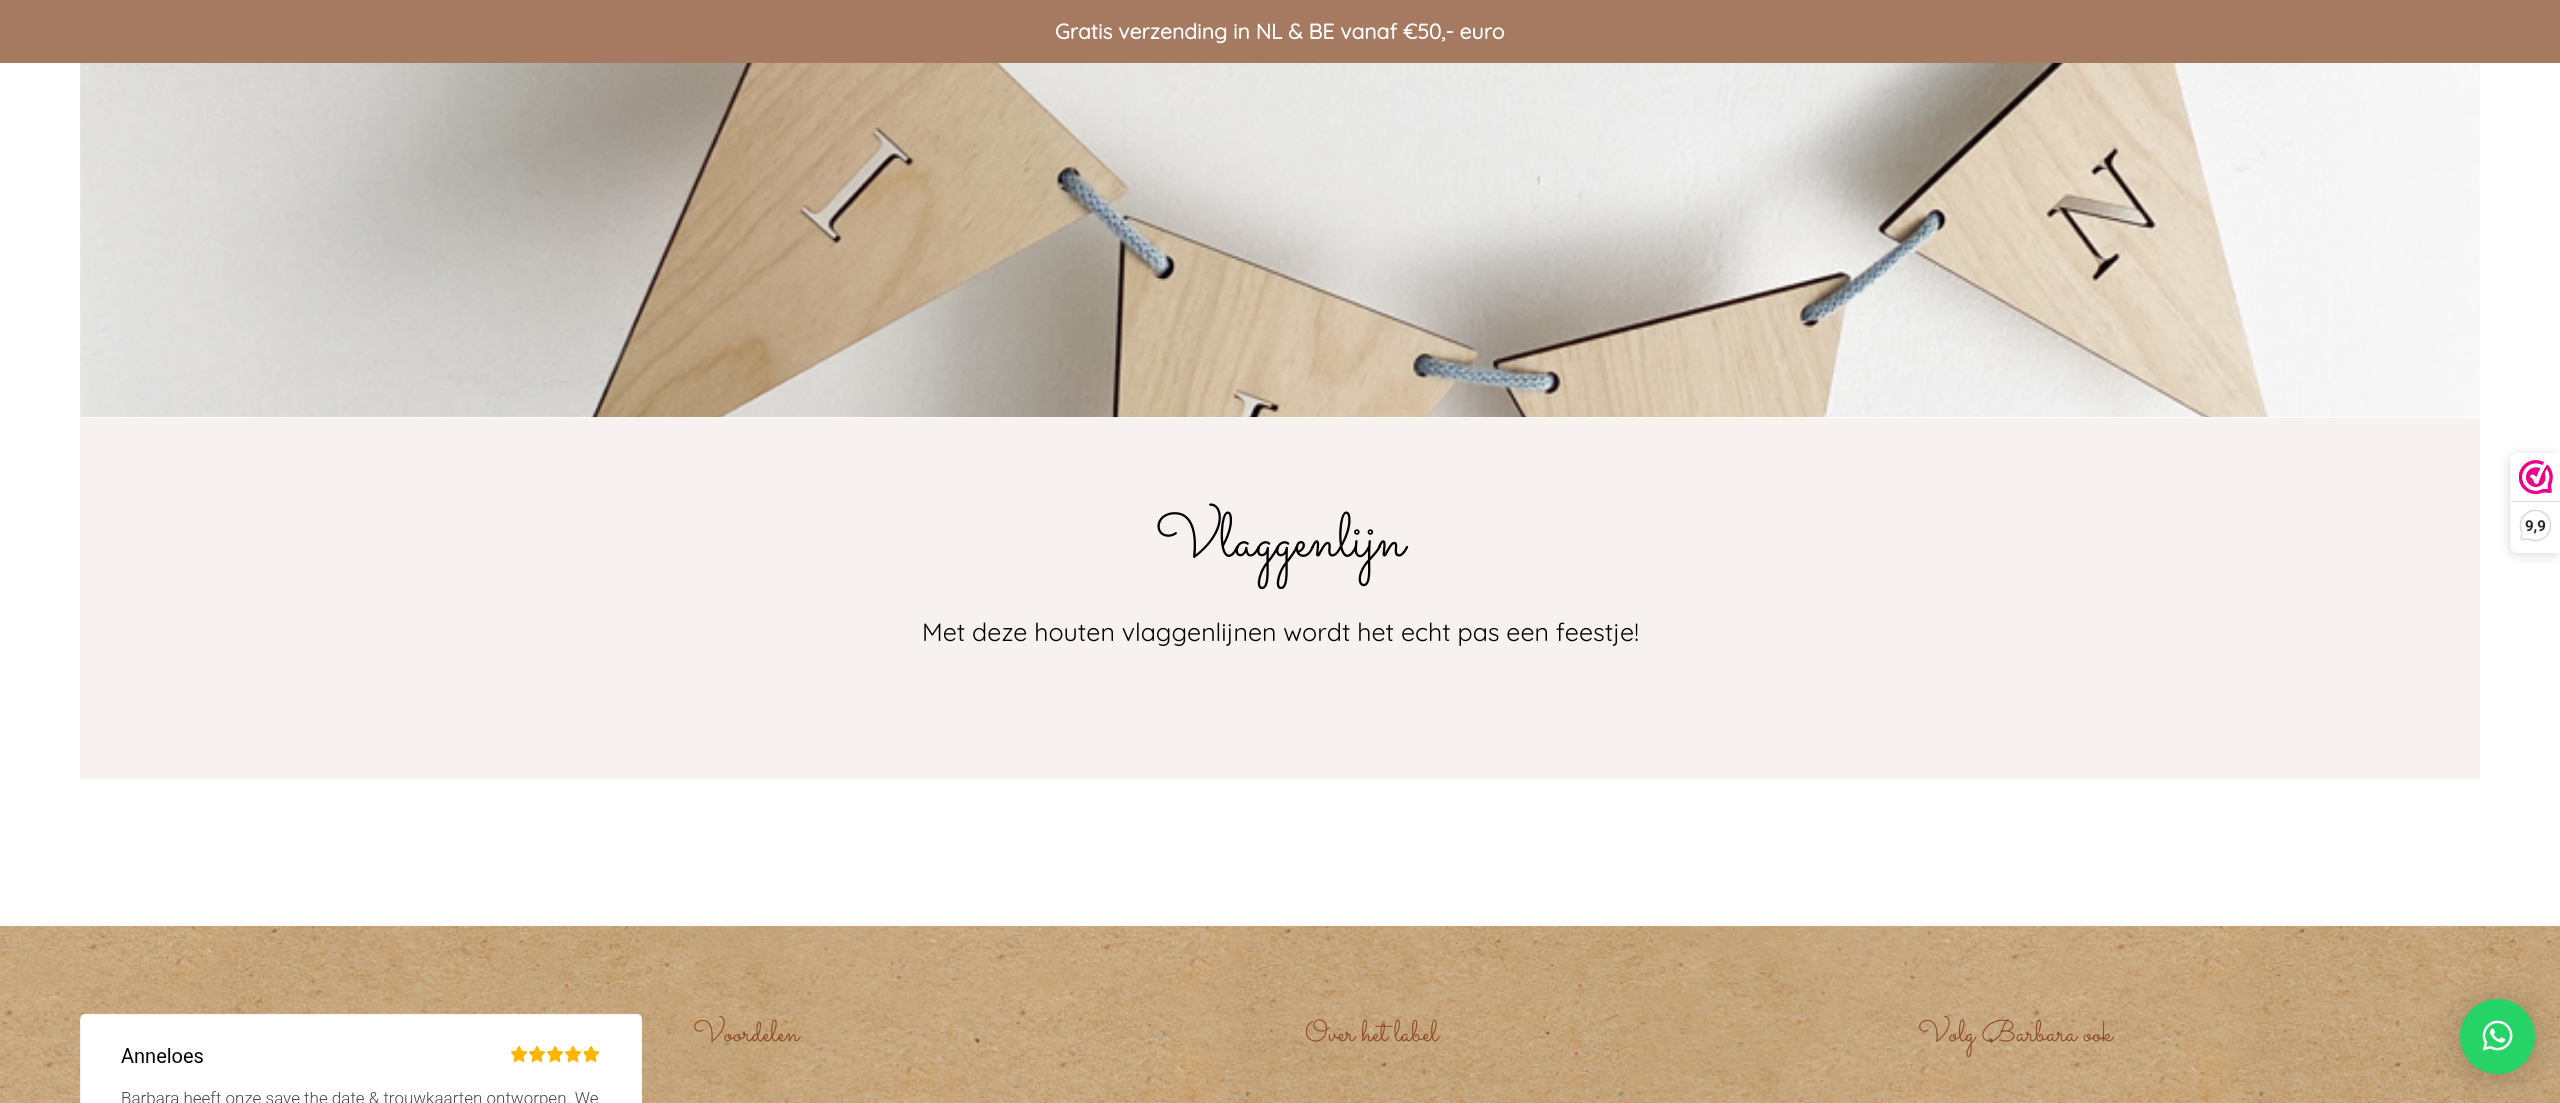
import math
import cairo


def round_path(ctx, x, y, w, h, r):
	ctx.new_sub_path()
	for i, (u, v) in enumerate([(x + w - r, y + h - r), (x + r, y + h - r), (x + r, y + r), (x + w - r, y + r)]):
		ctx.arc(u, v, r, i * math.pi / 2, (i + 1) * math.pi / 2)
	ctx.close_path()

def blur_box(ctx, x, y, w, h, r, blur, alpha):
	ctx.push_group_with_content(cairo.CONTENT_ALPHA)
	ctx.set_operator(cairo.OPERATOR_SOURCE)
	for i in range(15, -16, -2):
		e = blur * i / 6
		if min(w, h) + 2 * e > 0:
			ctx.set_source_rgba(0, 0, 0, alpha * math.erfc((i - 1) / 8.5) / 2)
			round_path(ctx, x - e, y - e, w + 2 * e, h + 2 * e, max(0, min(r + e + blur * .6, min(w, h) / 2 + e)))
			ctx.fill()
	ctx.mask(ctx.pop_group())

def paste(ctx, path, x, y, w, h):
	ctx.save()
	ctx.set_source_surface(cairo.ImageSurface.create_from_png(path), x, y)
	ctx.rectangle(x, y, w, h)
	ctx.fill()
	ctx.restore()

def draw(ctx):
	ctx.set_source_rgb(1, 1, 1)
	ctx.paint()
	ctx.set_source_rgb(0.647, 0.478, 0.376)
	ctx.rectangle(0, 0, 2560, 63)
	ctx.fill()
	ctx.select_font_face('Quicksand', cairo.FONT_SLANT_NORMAL, cairo.FONT_WEIGHT_BOLD)
	ctx.set_font_size(21.25)
	ctx.set_source_rgb(1, 1, 1)
	ctx.move_to(1055, 39)
	ctx.show_text('Gratis verzending in NL & BE vanaf €50,- euro')
	paste(ctx, 'media/1.png', 80, 63, 2400, 355)
	ctx.set_source_rgb(0.965, 0.949, 0.937)
	ctx.rectangle(80, 418, 2400, 361)
	ctx.fill()
	ctx.select_font_face('Sacramento')
	ctx.set_font_size(62.5)
	ctx.set_source_rgb(0, 0, 0)
	ctx.move_to(1155, 556)
	ctx.show_text('Vlaggenlijn')
	ctx.select_font_face('Quicksand Light')
	ctx.set_font_size(25)
	ctx.move_to(922, 641)
	ctx.show_text('Met deze houten vlaggenlijnen wordt het echt pas een feestje!')
	paste(ctx, 'media/2.png', 0, 926, 2560, 177)
	paste(ctx, 'media/3.png', 80, 1013, 563, 90)
	ctx.select_font_face('Sacramento')
	ctx.set_font_size(30)
	ctx.set_source_rgb(0.553, 0.282, 0.165)
	for x, y, s in [
		(693, 1041, 'Voordelen'),
		(1305, 1041, 'Over het label'),
		(1918, 1041, 'Volg Barbara ook'),
	]:
		ctx.move_to(x, y)
		ctx.show_text(s)
	ctx.set_source_rgb(0, 0, 0)
	blur_box(ctx, 2510, 455, 50, 100, 8, 6, 0.15)
	ctx.set_source_rgb(1, 1, 1)
	ctx.new_path()
	ctx.move_to(2518, 453)
	ctx.line_to(2560, 453)
	ctx.line_to(2560, 553)
	ctx.line_to(2518, 553)
	ctx.curve_to(2513.5, 553, 2510, 549.5, 2510, 545)
	ctx.line_to(2510, 461)
	ctx.curve_to(2510, 456.5, 2513.5, 453, 2518, 453)
	ctx.close_path()
	ctx.fill()
	paste(ctx, 'media/4.png', 2519, 460, 34, 35)
	ctx.set_source_rgb(0.851, 0.851, 0.851)
	ctx.rectangle(2511, 501, 49, 1)
	ctx.fill()
	paste(ctx, 'media/5.png', 2519, 509, 33, 33)
	ctx.select_font_face('Roboto', cairo.FONT_SLANT_NORMAL, cairo.FONT_WEIGHT_BOLD)
	ctx.set_font_size(15)
	ctx.set_source_rgb(0.153, 0.149, 0.149)
	ctx.move_to(2525, 531)
	ctx.show_text('9,9')
	ctx.set_source_rgb(0, 0, 0)
	blur_box(ctx, 2460, 1001, 75, 75, 37.5, 20, 0.16)
	blur_box(ctx, 2460, 1000, 75, 75, 37.5, 4, 0.06)
	ctx.set_source_rgb(0.145, 0.827, 0.4)
	ctx.arc(2497.5, 1036.5, 37.5, 0, 2 * math.pi)
	ctx.fill()
	paste(ctx, 'media/6.png', 2482, 1020, 31, 31)


surface = cairo.ImageSurface(cairo.FORMAT_RGB24, 2560, 1103)
ctx = cairo.Context(surface)
options = cairo.FontOptions()
options.set_hint_metrics(cairo.HINT_METRICS_OFF)
options.set_hint_style(cairo.HINT_STYLE_NONE)
ctx.set_font_options(options)
ctx.set_miter_limit(4)
draw(ctx)
surface.write_to_png('image.png')
